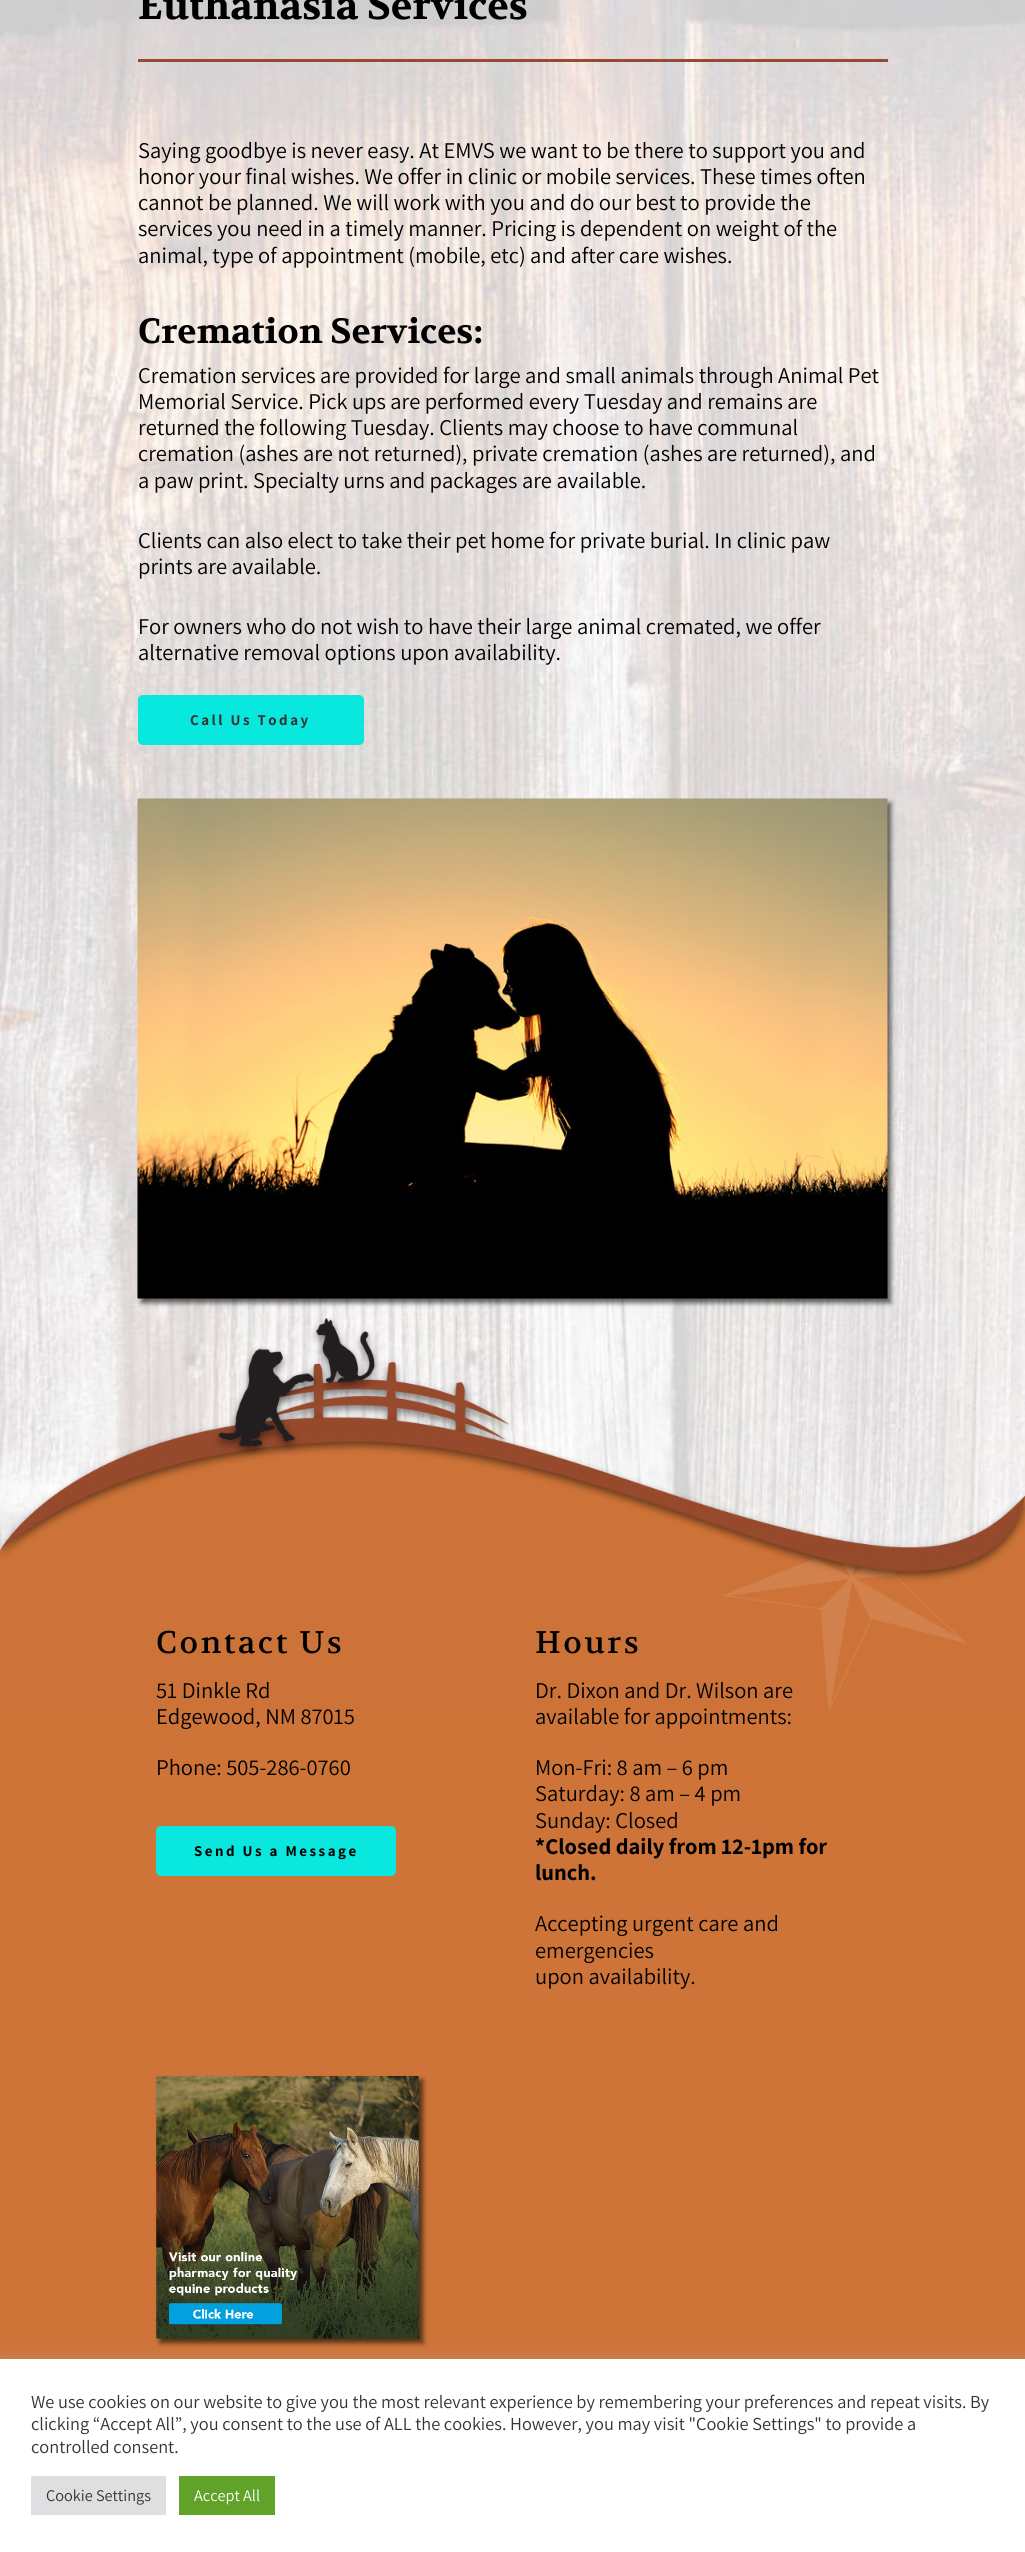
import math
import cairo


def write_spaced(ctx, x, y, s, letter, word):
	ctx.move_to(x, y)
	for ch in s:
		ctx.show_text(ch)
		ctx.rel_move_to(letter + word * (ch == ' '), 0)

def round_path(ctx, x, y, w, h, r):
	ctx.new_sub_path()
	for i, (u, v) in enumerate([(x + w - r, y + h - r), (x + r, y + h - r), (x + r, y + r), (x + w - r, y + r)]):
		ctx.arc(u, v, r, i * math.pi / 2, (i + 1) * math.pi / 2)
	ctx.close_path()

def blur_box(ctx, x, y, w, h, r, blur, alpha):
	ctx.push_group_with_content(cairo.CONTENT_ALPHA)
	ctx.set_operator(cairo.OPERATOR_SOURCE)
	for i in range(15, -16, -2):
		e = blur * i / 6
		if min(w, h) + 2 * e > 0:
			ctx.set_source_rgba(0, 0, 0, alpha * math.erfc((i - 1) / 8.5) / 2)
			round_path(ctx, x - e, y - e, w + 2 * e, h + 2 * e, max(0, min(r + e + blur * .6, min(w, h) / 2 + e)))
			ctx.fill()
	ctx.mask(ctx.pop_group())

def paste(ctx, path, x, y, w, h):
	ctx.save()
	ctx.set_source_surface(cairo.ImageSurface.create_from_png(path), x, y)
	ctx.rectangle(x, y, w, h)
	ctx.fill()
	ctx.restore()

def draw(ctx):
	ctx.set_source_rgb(0.808, 0.455, 0.224)
	ctx.paint()
	paste(ctx, 'media/1.png', 0, 0, 1025, 1551)
	ctx.select_font_face('Volkhov', cairo.FONT_SLANT_NORMAL, cairo.FONT_WEIGHT_BOLD)
	ctx.set_font_size(39.4)
	ctx.set_source_rgb(0, 0, 0)
	ctx.move_to(138, 19)
	ctx.show_text('Euthanasia Services')
	ctx.set_source_rgb(0.592, 0.29, 0.176)
	ctx.rectangle(138, 59, 750, 3)
	ctx.fill()
	ctx.select_font_face('Assistant')
	ctx.set_font_size(22.5)
	ctx.set_source_rgb(0, 0, 0)
	for x, y, s in [
		(138, 158, 'Saying goodbye is never easy. At EMVS we want to be there to support you and'),
		(138, 184, 'honor your final wishes. We offer in clinic or mobile services. These times often'),
		(138, 210, 'cannot be planned. We will work with you and do our best to provide the'),
		(138, 236, 'services you need in a timely manner. Pricing is dependent on weight of the'),
		(138, 263, 'animal, type of appointment (mobile, etc) and after care wishes.'),
	]:
		ctx.move_to(x, y)
		ctx.show_text(s)
	ctx.select_font_face('Volkhov', cairo.FONT_SLANT_NORMAL, cairo.FONT_WEIGHT_BOLD)
	ctx.set_font_size(35)
	ctx.move_to(138, 343)
	ctx.show_text('Cremation Services:')
	ctx.select_font_face('Assistant')
	ctx.set_font_size(22.5)
	for x, y, s in [
		(138, 383, 'Cremation services are provided for large and small animals through Animal Pet'),
		(138, 409, 'Memorial Service. Pick ups are performed every Tuesday and remains are'),
		(138, 435, 'returned the following Tuesday. Clients may choose to have communal'),
		(138, 461, 'cremation (ashes are not returned), private cremation (ashes are returned), and'),
		(138, 488, 'a paw print. Specialty urns and packages are available.'),
		(138, 548, 'Clients can also elect to take their pet home for private burial. In clinic paw'),
		(138, 574, 'prints are available.'),
		(138, 634, 'For owners who do not wish to have their large animal cremated, we offer'),
		(138, 660, 'alternative removal options upon availability.'),
	]:
		ctx.move_to(x, y)
		ctx.show_text(s)
	ctx.set_source_rgb(0.035, 0.91, 0.875)
	round_path(ctx, 138, 695, 226, 50, 5)
	ctx.fill()
	ctx.select_font_face('Assistant', cairo.FONT_SLANT_NORMAL, cairo.FONT_WEIGHT_BOLD)
	ctx.set_font_size(15)
	ctx.set_source_rgb(0.2, 0.2, 0.2)
	write_spaced(ctx, 190, 725, 'Call Us Today', 2.5, 0)
	ctx.set_source_rgb(0, 0, 0)
	blur_box(ctx, 141, 803, 750, 500, 0, 2.5, 0.6)
	paste(ctx, 'media/2.png', 137, 798, 751, 501)
	paste(ctx, 'media/3.png', 0, 1317, 1025, 393)
	ctx.select_font_face('Volkhov')
	ctx.set_font_size(31.25)
	ctx.set_source_rgb(0, 0, 0)
	write_spaced(ctx, 156, 1653, 'Contact Us', 2.5, 0)
	ctx.select_font_face('Assistant')
	ctx.set_font_size(22.5)
	for x, y, s in [
		(156, 1698, '51 Dinkle Rd'),
		(156, 1724, 'Edgewood, NM 87015'),
		(156, 1775, 'Phone: 505-286-0760'),
	]:
		ctx.move_to(x, y)
		ctx.show_text(s)
	ctx.set_source_rgb(0.035, 0.91, 0.875)
	round_path(ctx, 156, 1826, 240, 50, 5)
	ctx.fill()
	ctx.select_font_face('Assistant', cairo.FONT_SLANT_NORMAL, cairo.FONT_WEIGHT_BOLD)
	ctx.set_font_size(15)
	ctx.set_source_rgb(0, 0, 0)
	write_spaced(ctx, 194, 1856, 'Send Us a Message', 2.5, 0)
	ctx.select_font_face('Volkhov')
	ctx.set_font_size(31.25)
	write_spaced(ctx, 535, 1653, 'Hours', 2.5, 0)
	ctx.select_font_face('Assistant')
	ctx.set_font_size(22.5)
	for x, y, s in [
		(535, 1698, 'Dr. Dixon and Dr. Wilson are'),
		(535, 1724, 'available for appointments:'),
		(535, 1775, 'Mon-Fri: 8 am – 6 pm'),
		(535, 1801, 'Saturday: 8 am – 4 pm'),
		(535, 1828, 'Sunday: Closed'),
	]:
		ctx.move_to(x, y)
		ctx.show_text(s)
	ctx.select_font_face('Assistant', cairo.FONT_SLANT_NORMAL, cairo.FONT_WEIGHT_BOLD)
	ctx.move_to(535, 1854)
	ctx.show_text('*Closed daily from 12-1pm for')
	ctx.move_to(535, 1880)
	ctx.show_text('lunch.')
	ctx.select_font_face('Assistant')
	for x, y, s in [
		(535, 1931, 'Accepting urgent care and'),
		(535, 1958, 'emergencies'),
		(535, 1984, 'upon availability.'),
	]:
		ctx.move_to(x, y)
		ctx.show_text(s)
	ctx.set_source_rgb(0, 0, 0)
	blur_box(ctx, 160, 2080, 263, 263, 0, 2.5, 0.6)
	paste(ctx, 'media/4.png', 156, 2076, 263, 263)
	ctx.set_source_rgb(0.675, 0.671, 0.671)
	blur_box(ctx, 0, 2358, 1025, 193, 0, 6, 0.3)
	ctx.set_source_rgb(1, 1, 1)
	ctx.rectangle(0, 2359, 1025, 193)
	ctx.fill()
	ctx.set_font_size(18.33)
	ctx.set_source_rgb(0.2, 0.2, 0.2)
	for x, y, s in [
		(31, 2408, 'We use cookies on our website to give you the most relevant experience by remembering your preferences and repeat visits. By'),
		(31, 2430, 'clicking “Accept All”, you consent to the use of ALL the cookies. However, you may visit "Cookie Settings" to provide a'),
		(31, 2453, 'controlled consent.'),
	]:
		ctx.move_to(x, y)
		ctx.show_text(s)
	ctx.set_source_rgb(0.871, 0.875, 0.878)
	ctx.rectangle(31, 2476, 135, 39)
	ctx.fill()
	ctx.set_font_size(16.25)
	ctx.set_source_rgb(0.2, 0.2, 0.2)
	ctx.move_to(46, 2501)
	ctx.show_text('Cookie Settings')
	ctx.set_source_rgb(0.38, 0.635, 0.161)
	ctx.rectangle(179, 2476, 96, 39)
	ctx.fill()
	ctx.set_source_rgb(1, 1, 1)
	ctx.move_to(194, 2501)
	ctx.show_text('Accept All')


surface = cairo.ImageSurface(cairo.FORMAT_RGB24, 1025, 2552)
ctx = cairo.Context(surface)
options = cairo.FontOptions()
options.set_hint_metrics(cairo.HINT_METRICS_OFF)
options.set_hint_style(cairo.HINT_STYLE_NONE)
ctx.set_font_options(options)
ctx.set_miter_limit(4)
draw(ctx)
surface.write_to_png('image.png')
